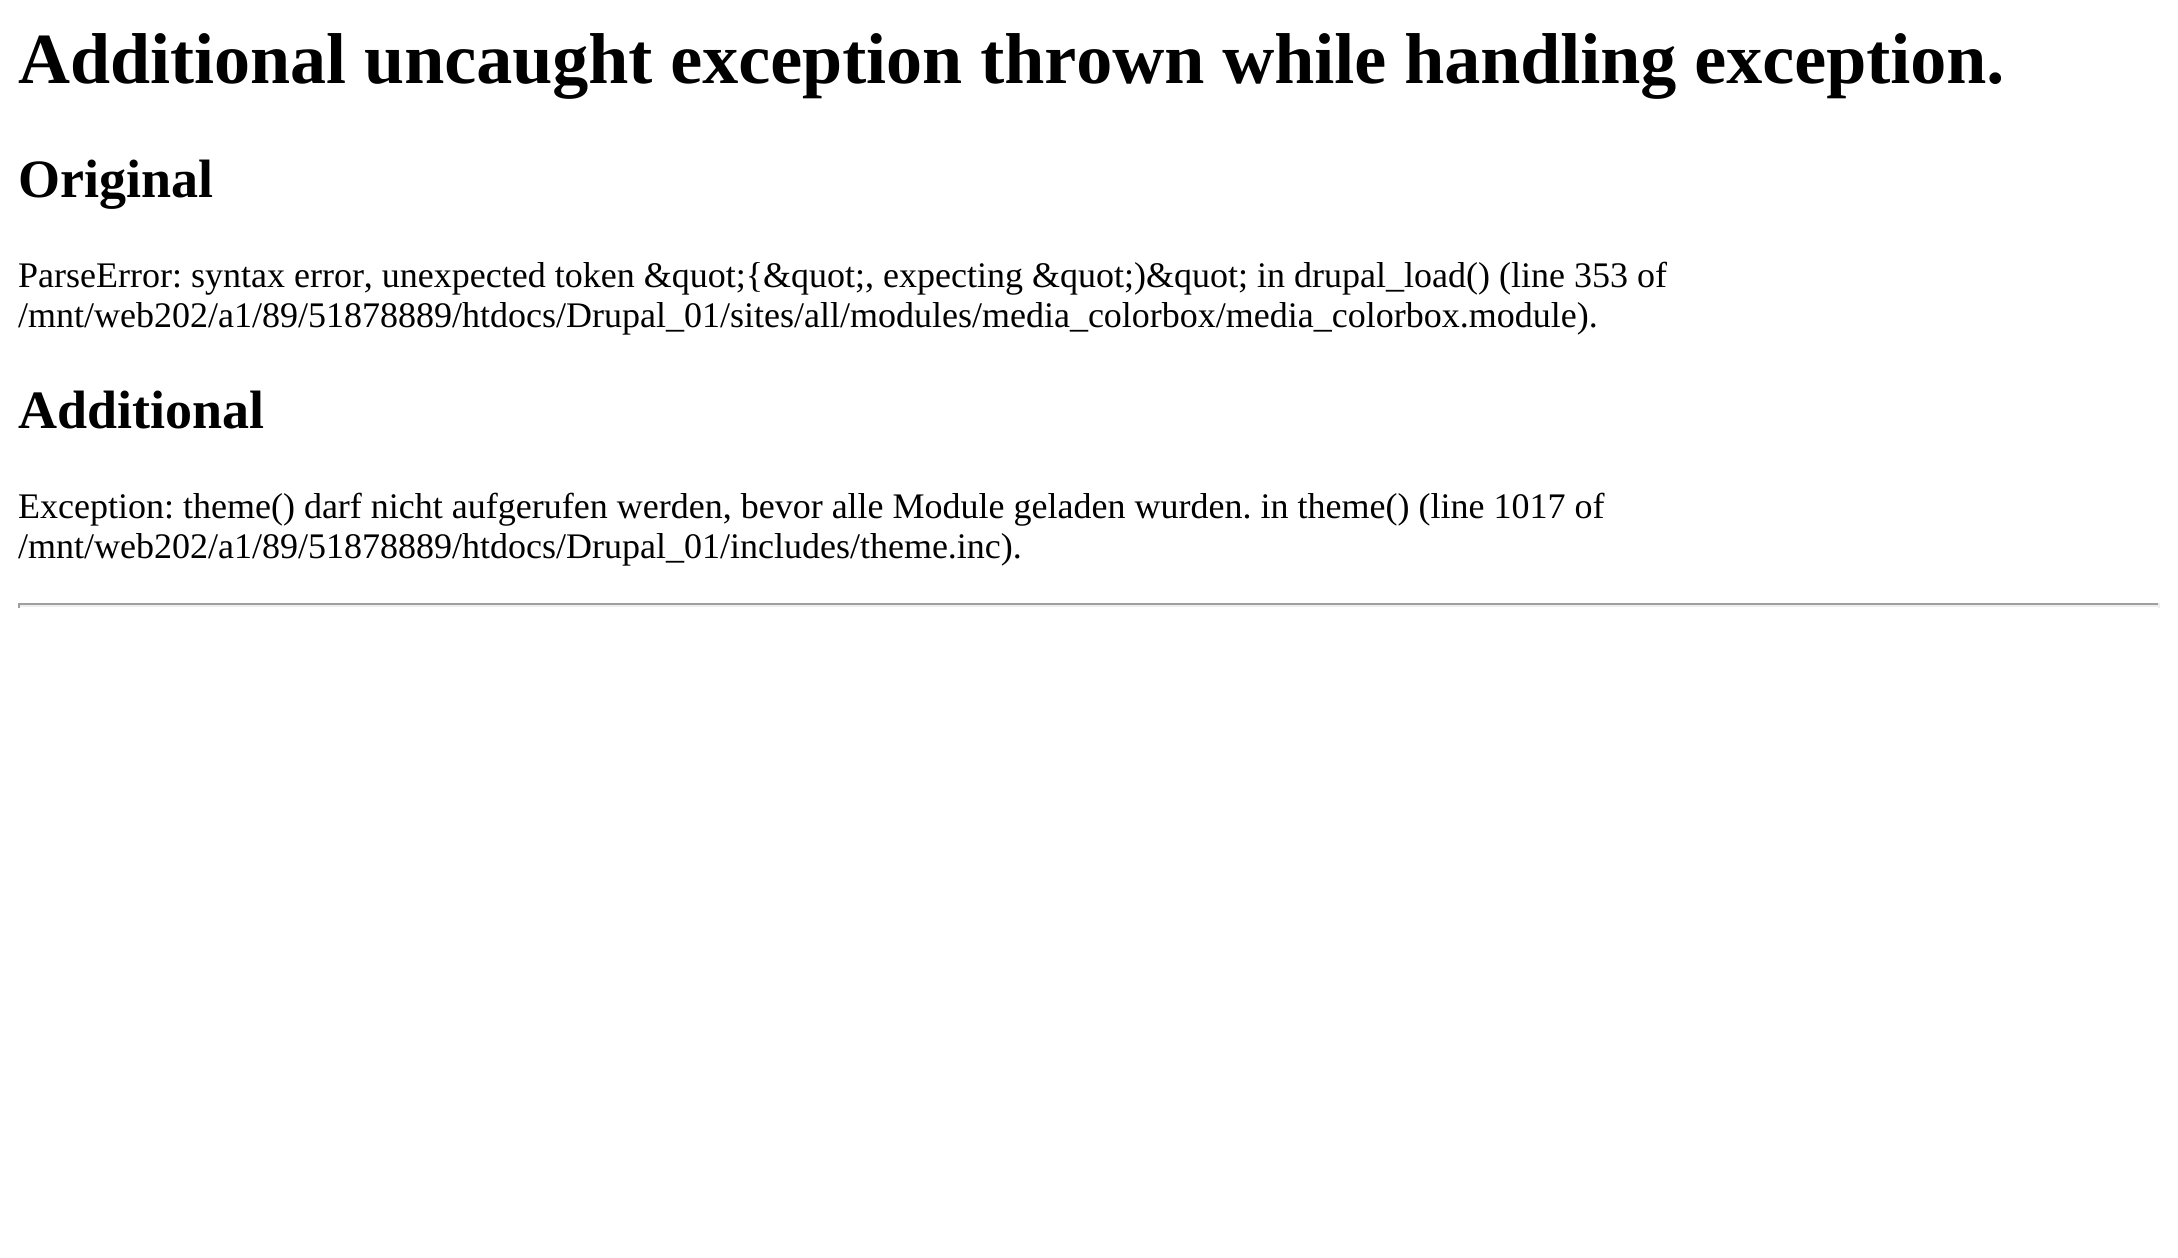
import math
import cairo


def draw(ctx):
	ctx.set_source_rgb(1, 1, 1)
	ctx.paint()
	ctx.select_font_face('Liberation Serif', cairo.FONT_SLANT_NORMAL, cairo.FONT_WEIGHT_BOLD)
	ctx.set_font_size(72)
	ctx.set_source_rgb(0, 0, 0)
	ctx.move_to(18, 83)
	ctx.show_text('Additional uncaught exception thrown while handling exception.')
	ctx.set_font_size(54)
	ctx.move_to(18, 197)
	ctx.show_text('Original')
	ctx.select_font_face('Liberation Serif')
	ctx.set_font_size(36)
	ctx.move_to(18, 287)
	ctx.show_text('ParseError: syntax error, unexpected token &quot;{&quot;, expecting &quot;)&quot; in drupal_load() (line 353 of')
	ctx.move_to(18, 327)
	ctx.show_text('/mnt/web202/a1/89/51878889/htdocs/Drupal_01/sites/all/modules/media_colorbox/media_colorbox.module).')
	ctx.select_font_face('Liberation Serif', cairo.FONT_SLANT_NORMAL, cairo.FONT_WEIGHT_BOLD)
	ctx.set_font_size(54)
	ctx.move_to(18, 428)
	ctx.show_text('Additional')
	ctx.select_font_face('Liberation Serif')
	ctx.set_font_size(36)
	ctx.move_to(18, 518)
	ctx.show_text('Exception: theme() darf nicht aufgerufen werden, bevor alle Module geladen wurden. in theme() (line 1017 of')
	ctx.move_to(18, 558)
	ctx.show_text('/mnt/web202/a1/89/51878889/htdocs/Drupal_01/includes/theme.inc).')
	ctx.set_source_rgb(0.624, 0.624, 0.624)
	ctx.rectangle(18, 603, 2142, 2)
	ctx.fill()
	ctx.set_source_rgb(0.933, 0.933, 0.933)
	ctx.rectangle(2158, 603, 2, 5)
	ctx.rectangle(18, 605, 2142, 2)
	ctx.fill()
	ctx.set_source_rgb(0.624, 0.624, 0.624)
	ctx.rectangle(18, 603, 2, 5)
	ctx.fill()


surface = cairo.ImageSurface(cairo.FORMAT_RGB24, 2178, 1258)
ctx = cairo.Context(surface)
options = cairo.FontOptions()
options.set_hint_metrics(cairo.HINT_METRICS_OFF)
options.set_hint_style(cairo.HINT_STYLE_NONE)
ctx.set_font_options(options)
ctx.set_miter_limit(4)
draw(ctx)
surface.write_to_png('image.png')
